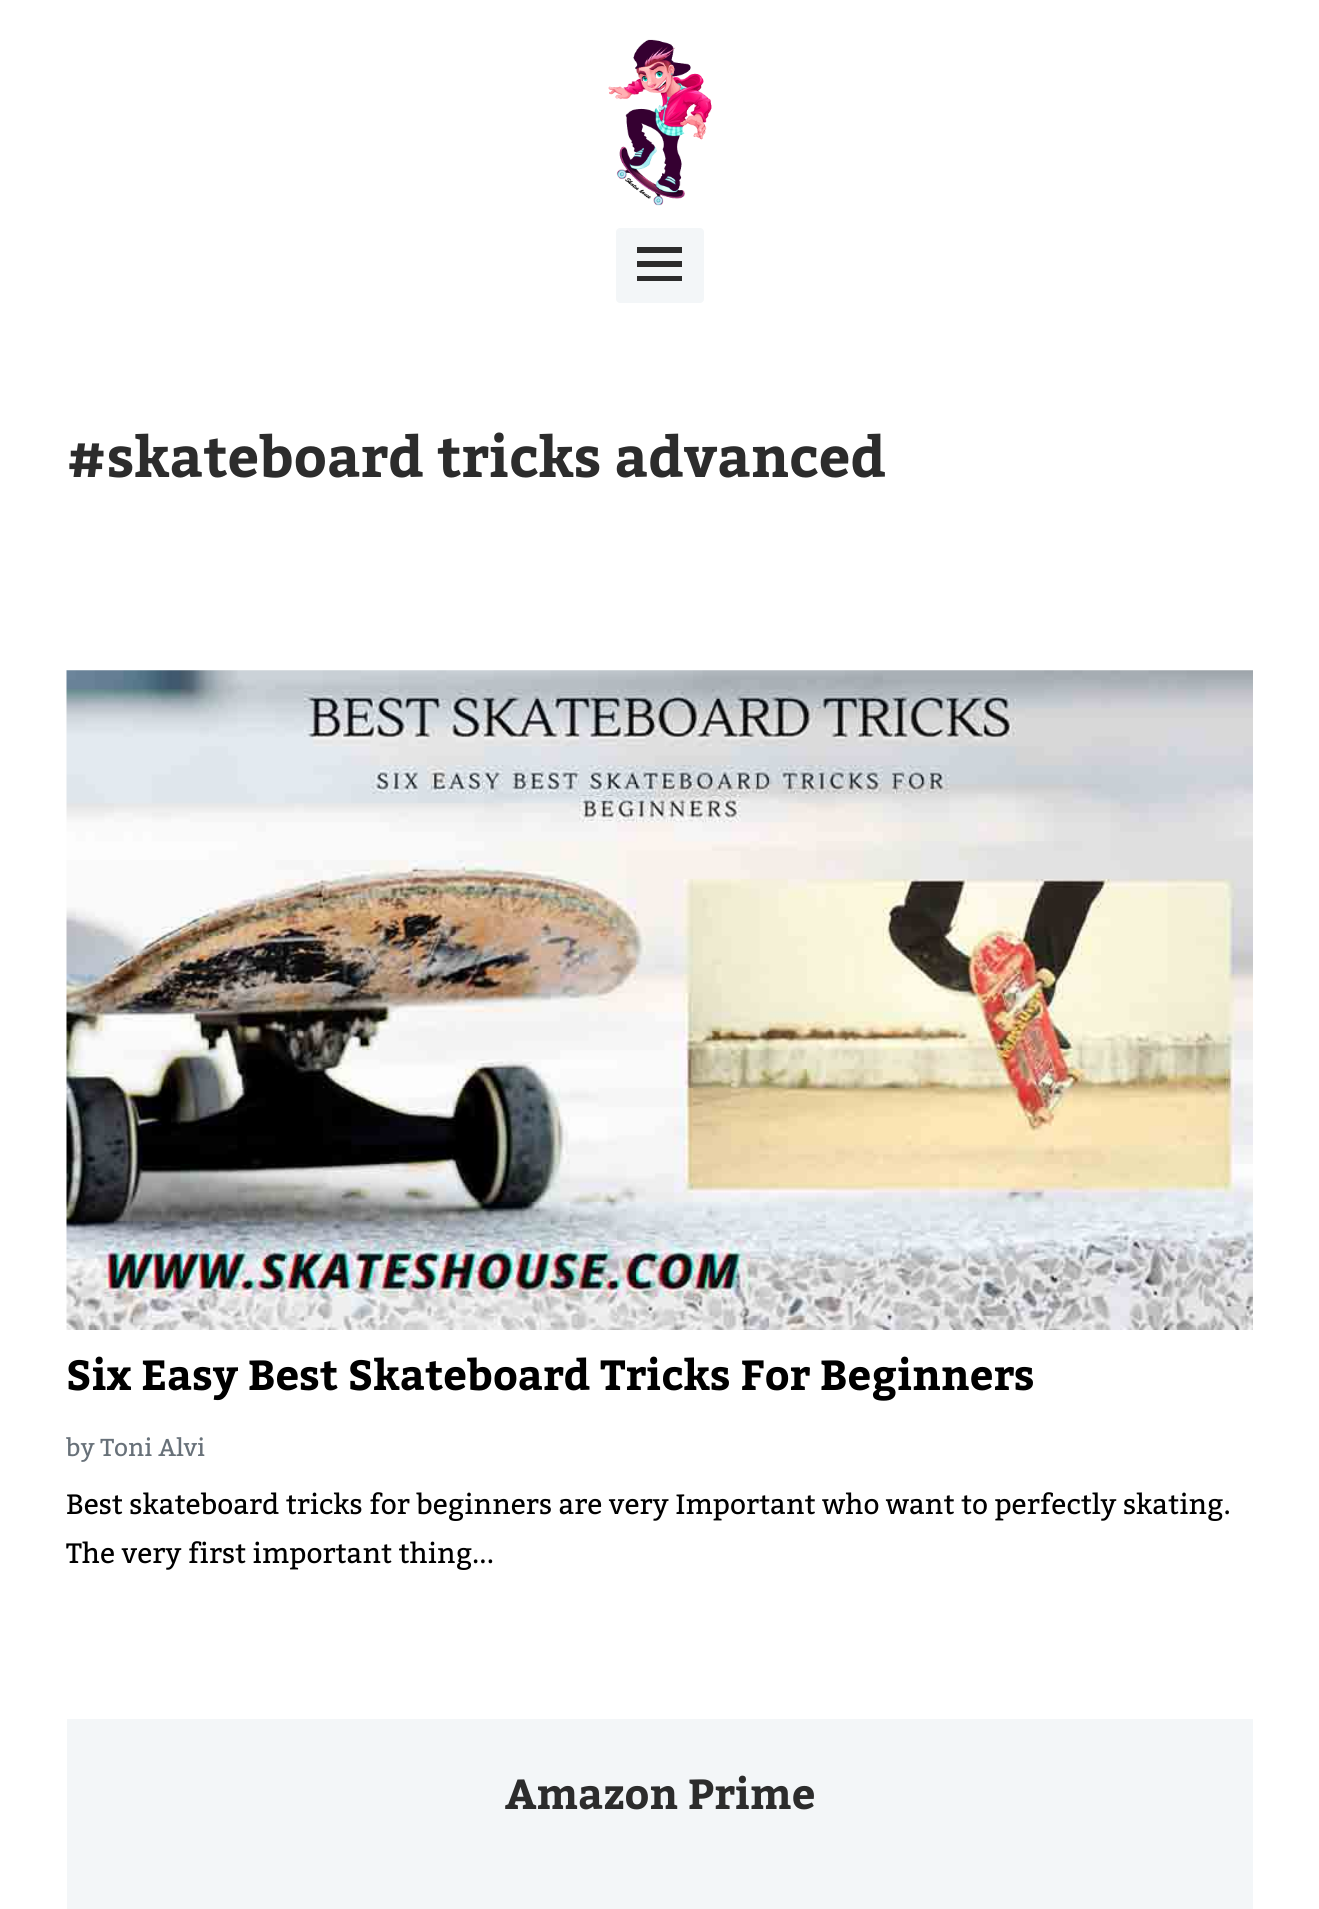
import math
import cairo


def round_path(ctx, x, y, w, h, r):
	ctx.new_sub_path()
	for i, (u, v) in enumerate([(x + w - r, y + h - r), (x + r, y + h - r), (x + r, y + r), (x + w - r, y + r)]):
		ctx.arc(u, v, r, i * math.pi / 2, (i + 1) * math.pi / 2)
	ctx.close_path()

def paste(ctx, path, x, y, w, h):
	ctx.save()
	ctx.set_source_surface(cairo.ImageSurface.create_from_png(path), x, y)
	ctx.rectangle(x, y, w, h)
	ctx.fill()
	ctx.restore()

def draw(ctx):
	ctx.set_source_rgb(1, 1, 1)
	ctx.paint()
	paste(ctx, 'media/1.png', 608, 39, 104, 167)
	ctx.set_source_rgb(0.953, 0.961, 0.969)
	round_path(ctx, 616, 228, 88, 75, 4)
	ctx.fill()
	ctx.set_source_rgb(0.173, 0.173, 0.173)
	ctx.new_path()
	ctx.move_to(637, 281)
	ctx.line_to(637, 276)
	ctx.line_to(682, 276)
	ctx.line_to(682, 281)
	ctx.close_path()
	ctx.move_to(637, 247)
	ctx.line_to(682, 247)
	ctx.line_to(682, 253)
	ctx.line_to(637, 253)
	ctx.close_path()
	ctx.move_to(637, 267)
	ctx.line_to(637, 261)
	ctx.line_to(682, 261)
	ctx.line_to(682, 267)
	ctx.close_path()
	ctx.fill()
	ctx.select_font_face('Kadwa', cairo.FONT_SLANT_NORMAL, cairo.FONT_WEIGHT_BOLD)
	ctx.set_font_size(56)
	ctx.move_to(66, 477)
	ctx.show_text('#skateboard tricks advanced')
	paste(ctx, 'media/2.png', 66, 670, 1187, 660)
	ctx.set_font_size(42)
	ctx.set_source_rgb(0, 0, 0)
	ctx.move_to(66, 1390)
	ctx.show_text('Six Easy Best Skateboard Tricks For Beginners')
	ctx.select_font_face('Kadwa')
	ctx.set_font_size(24.5)
	ctx.set_source_rgb(0.408, 0.443, 0.475)
	ctx.move_to(66, 1456)
	ctx.show_text('by Toni Alvi')
	ctx.set_font_size(28)
	ctx.set_source_rgb(0, 0, 0)
	ctx.move_to(66, 1514)
	ctx.show_text('Best skateboard tricks for beginners are very Important who want to perfectly skating.')
	ctx.move_to(66, 1563)
	ctx.show_text('The very first important thing...')
	ctx.set_source_rgb(0.953, 0.961, 0.969)
	ctx.rectangle(67, 1719, 1186, 190)
	ctx.fill()
	ctx.select_font_face('Kadwa', cairo.FONT_SLANT_NORMAL, cairo.FONT_WEIGHT_BOLD)
	ctx.set_font_size(42)
	ctx.set_source_rgb(0.173, 0.173, 0.173)
	ctx.move_to(505, 1809)
	ctx.show_text('Amazon Prime')


surface = cairo.ImageSurface(cairo.FORMAT_RGB24, 1319, 1909)
ctx = cairo.Context(surface)
options = cairo.FontOptions()
options.set_hint_metrics(cairo.HINT_METRICS_OFF)
options.set_hint_style(cairo.HINT_STYLE_NONE)
ctx.set_font_options(options)
ctx.set_miter_limit(4)
draw(ctx)
surface.write_to_png('image.png')
